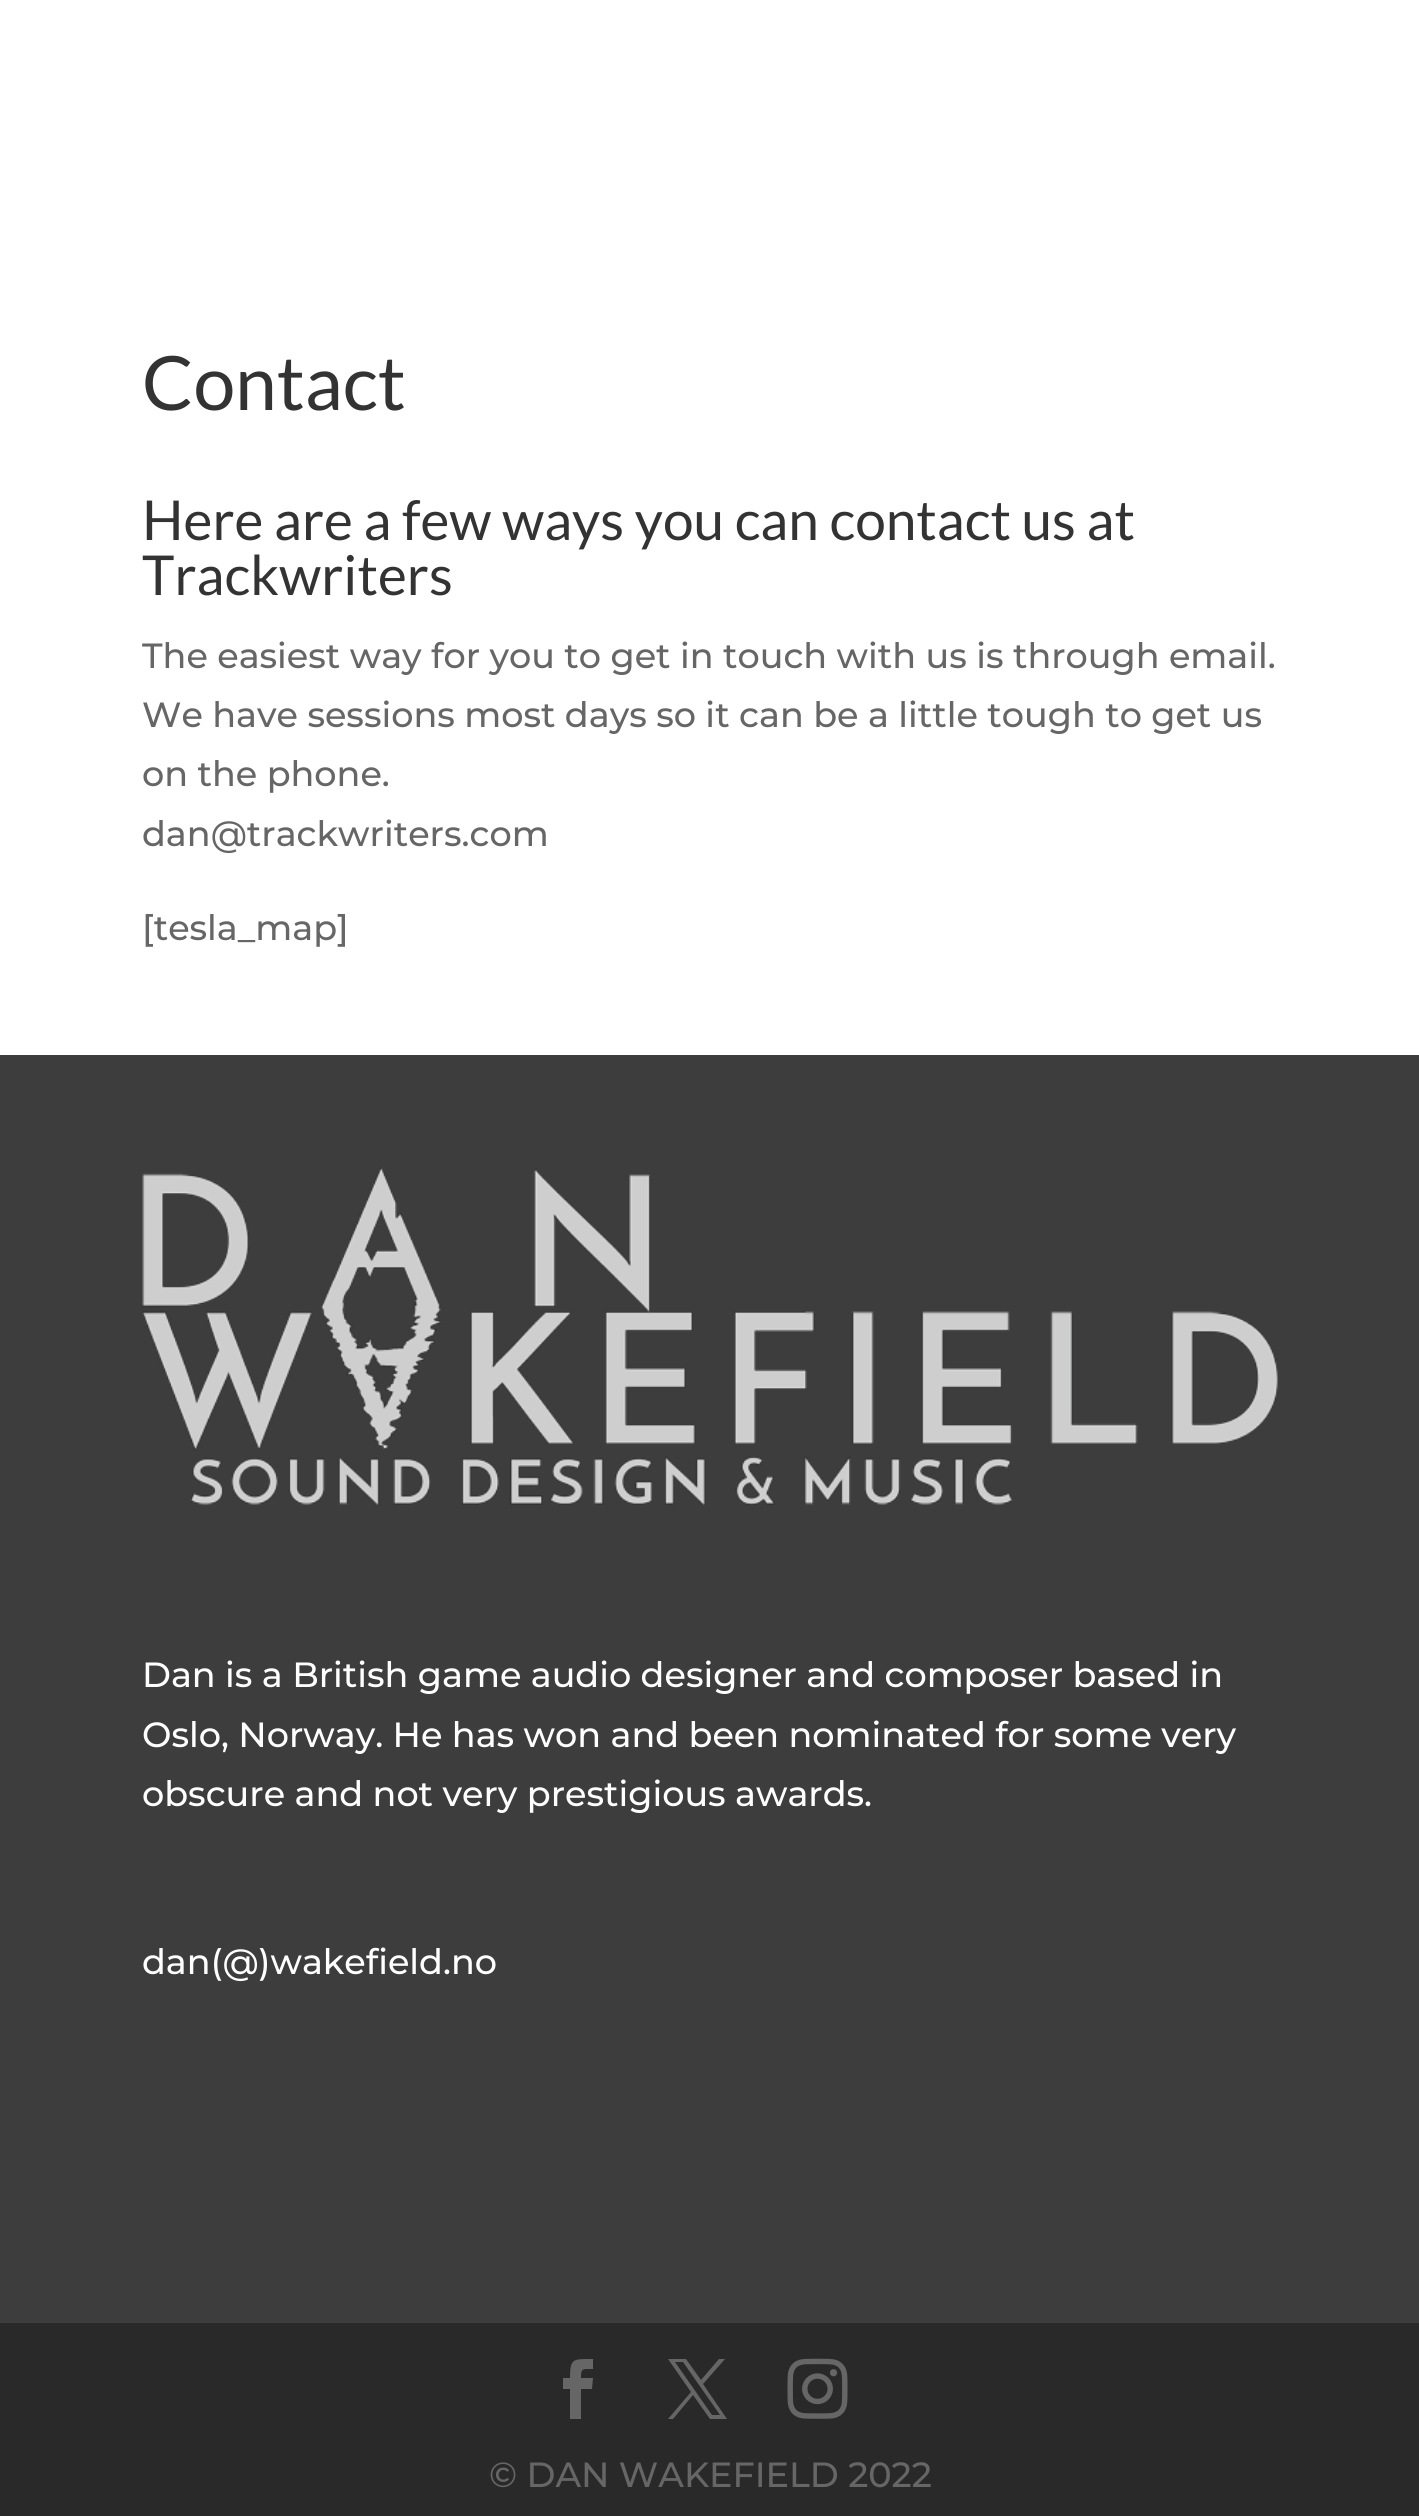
import math
import cairo


def paste(ctx, path, x, y, w, h):
	ctx.save()
	ctx.set_source_surface(cairo.ImageSurface.create_from_png(path), x, y)
	ctx.rectangle(x, y, w, h)
	ctx.fill()
	ctx.restore()

def draw(ctx):
	ctx.set_source_rgb(1, 1, 1)
	ctx.paint()
	ctx.select_font_face('Lato')
	ctx.set_font_size(75)
	ctx.set_source_rgb(0.2, 0.2, 0.2)
	ctx.move_to(142, 410)
	ctx.show_text('Contact')
	ctx.set_font_size(55)
	ctx.move_to(142, 540)
	ctx.show_text('Here are a few ways you can contact us at')
	ctx.move_to(142, 595)
	ctx.show_text('Trackwriters')
	ctx.select_font_face('Montserrat Medium')
	ctx.set_font_size(35)
	ctx.set_source_rgb(0.4, 0.4, 0.4)
	for x, y, s in [
		(142, 668, 'The easiest way for you to get in touch with us is through email.'),
		(142, 727, 'We have sessions most days so it can be a little tough to get us'),
		(142, 786, 'on the phone.'),
		(142, 846, 'dan@trackwriters.com'),
		(142, 940, '[tesla_map]'),
	]:
		ctx.move_to(x, y)
		ctx.show_text(s)
	ctx.set_source_rgb(0.239, 0.239, 0.239)
	ctx.rectangle(0, 1055, 1419, 1268)
	ctx.fill()
	paste(ctx, 'media/1.png', 142, 1167, 1136, 338)
	ctx.set_source_rgb(1, 1, 1)
	for x, y, s in [
		(142, 1687, 'Dan is a British game audio designer and composer based in'),
		(142, 1747, 'Oslo, Norway. He has won and been nominated for some very'),
		(142, 1806, 'obscure and not very prestigious awards.'),
		(142, 1974, 'dan(@)wakefield.no'),
	]:
		ctx.move_to(x, y)
		ctx.show_text(s)
	ctx.set_source_rgb(0.161, 0.161, 0.161)
	ctx.rectangle(0, 2323, 1419, 193)
	ctx.fill()
	ctx.set_source_rgb(0.4, 0.4, 0.4)
	ctx.new_path()
	ctx.move_to(570, 2419)
	ctx.line_to(581, 2419)
	ctx.line_to(581, 2389)
	ctx.line_to(592, 2389)
	ctx.line_to(593, 2378)
	ctx.line_to(581, 2378)
	ctx.curve_to(581, 2368, 582, 2369, 593, 2369)
	ctx.line_to(593, 2359)
	ctx.curve_to(573, 2359, 570, 2358, 570, 2378)
	ctx.line_to(563, 2378)
	ctx.line_to(563, 2389)
	ctx.line_to(570, 2389)
	ctx.close_path()
	ctx.fill()
	ctx.new_path()
	ctx.move_to(668, 2359)
	ctx.line_to(691, 2392)
	ctx.line_to(668, 2419)
	ctx.line_to(673, 2419)
	ctx.line_to(693, 2395)
	ctx.line_to(710, 2419)
	ctx.line_to(727, 2419)
	ctx.line_to(703, 2384)
	ctx.line_to(725, 2359)
	ctx.line_to(719, 2359)
	ctx.line_to(701, 2380)
	ctx.line_to(686, 2359)
	ctx.close_path()
	ctx.move_to(675, 2362)
	ctx.line_to(683, 2362)
	ctx.line_to(720, 2415)
	ctx.line_to(712, 2415)
	ctx.close_path()
	ctx.fill()
	paste(ctx, 'media/2.png', 787, 2358, 61, 61)
	ctx.move_to(489, 2487)
	ctx.show_text('© DAN WAKEFIELD 2022')


surface = cairo.ImageSurface(cairo.FORMAT_RGB24, 1419, 2516)
ctx = cairo.Context(surface)
options = cairo.FontOptions()
options.set_hint_metrics(cairo.HINT_METRICS_OFF)
options.set_hint_style(cairo.HINT_STYLE_NONE)
ctx.set_font_options(options)
ctx.set_miter_limit(4)
draw(ctx)
surface.write_to_png('image.png')
